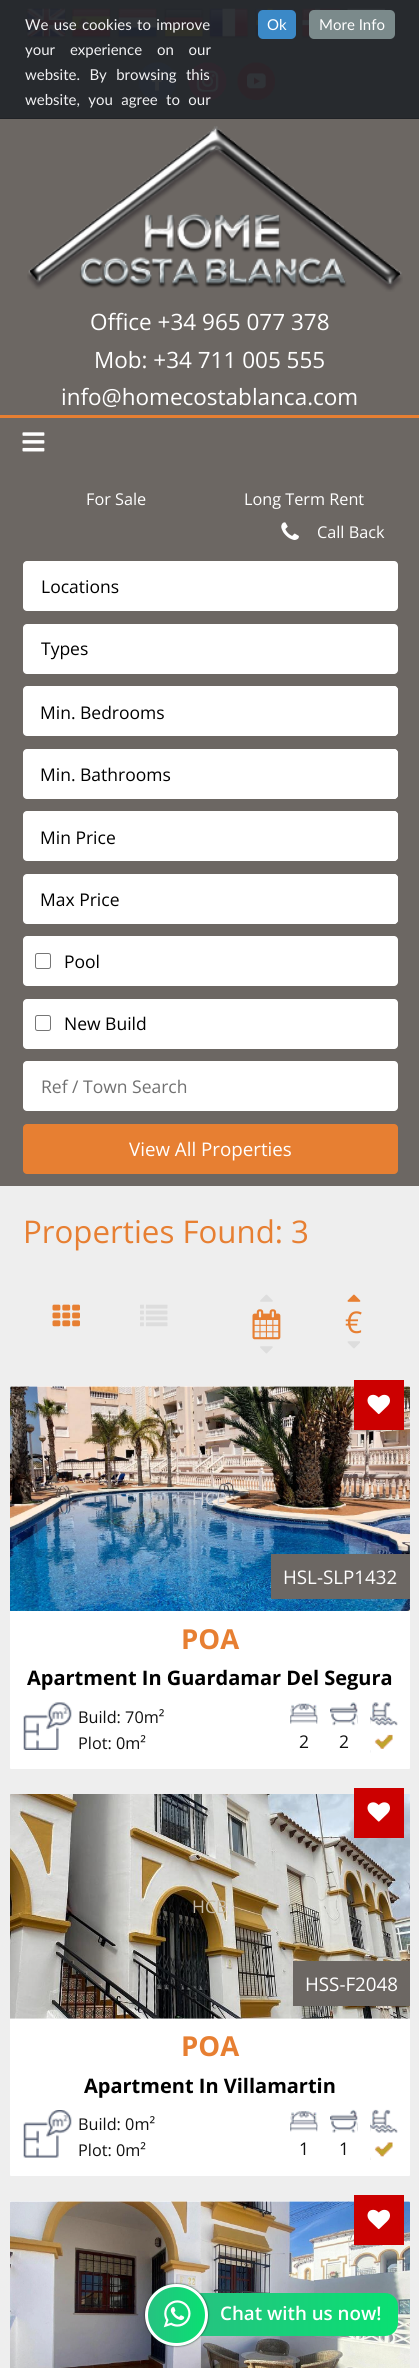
import math
import cairo


def write_spaced(ctx, x, y, s, letter, word):
	ctx.move_to(x, y)
	for ch in s:
		ctx.show_text(ch)
		ctx.rel_move_to(letter + word * (ch == ' '), 0)

def round_path(ctx, x, y, w, h, r):
	ctx.new_sub_path()
	for i, (u, v) in enumerate([(x + w - r, y + h - r), (x + r, y + h - r), (x + r, y + r), (x + w - r, y + r)]):
		ctx.arc(u, v, r, i * math.pi / 2, (i + 1) * math.pi / 2)
	ctx.close_path()

def blur_box(ctx, x, y, w, h, r, blur, alpha):
	ctx.push_group_with_content(cairo.CONTENT_ALPHA)
	ctx.set_operator(cairo.OPERATOR_SOURCE)
	for i in range(15, -16, -2):
		e = blur * i / 6
		if min(w, h) + 2 * e > 0:
			ctx.set_source_rgba(0, 0, 0, alpha * math.erfc((i - 1) / 8.5) / 2)
			round_path(ctx, x - e, y - e, w + 2 * e, h + 2 * e, max(0, min(r + e + blur * .6, min(w, h) / 2 + e)))
			ctx.fill()
	ctx.mask(ctx.pop_group())

def paste(ctx, path, x, y, w, h):
	ctx.save()
	ctx.set_source_surface(cairo.ImageSurface.create_from_png(path), x, y)
	ctx.rectangle(x, y, w, h)
	ctx.fill()
	ctx.restore()

def draw(ctx):
	ctx.set_source_rgb(0.424, 0.404, 0.388)
	ctx.paint()
	ctx.set_source_rgb(0.125, 0.133, 0.149)
	ctx.rectangle(0, 118, 419, 1)
	ctx.fill()
	ctx.set_source_rgb(0.153, 0.165, 0.18)
	ctx.rectangle(0, 0, 419, 118)
	ctx.fill()
	paste(ctx, 'media/1.png', 26, 8, 40, 31)
	paste(ctx, 'media/2.png', 71, 8, 40, 31)
	paste(ctx, 'media/3.png', 117, 8, 41, 31)
	paste(ctx, 'media/4.png', 164, 8, 40, 31)
	paste(ctx, 'media/5.png', 209, 8, 40, 31)
	ctx.select_font_face('Lato')
	ctx.set_font_size(15)
	ctx.set_source_rgb(0.945, 0.945, 0.953)
	write_spaced(ctx, 25, 30, 'We use cookies to improve', 0, 1.5)
	write_spaced(ctx, 25, 55, 'your experience on our', 0, 11)
	paste(ctx, 'media/9.png', 138, 62, 39, 38)
	paste(ctx, 'media/10.png', 188, 62, 39, 38)
	write_spaced(ctx, 25, 80, 'website. By browsing this', 0, 5.5)
	write_spaced(ctx, 25, 105, 'website, you agree to our', 0, 4.5)
	paste(ctx, 'media/6.png', 255, 8, 40, 31)
	ctx.set_source_rgb(0.231, 0.537, 0.78)
	round_path(ctx, 258, 10, 38, 29, 5)
	ctx.fill()
	ctx.set_source_rgb(1, 1, 1)
	ctx.move_to(267, 30)
	ctx.show_text('Ok')
	paste(ctx, 'media/7.png', 301, 8, 40, 31)
	ctx.set_source_rgb(0.482, 0.541, 0.545)
	round_path(ctx, 309, 10, 86, 29, 5)
	ctx.fill()
	ctx.set_source_rgb(1, 1, 1)
	ctx.move_to(319, 30)
	ctx.show_text('More Info')
	paste(ctx, 'media/8.png', 346, 8, 40, 2)
	paste(ctx, 'media/11.png', 237, 62, 38, 38)
	paste(ctx, 'media/12.png', 27, 126, 376, 166)
	ctx.select_font_face('Open Sans')
	ctx.set_font_size(22.5)
	for x, y, s in [
		(90, 330, 'Office +34 965 077 378'),
		(94, 368, 'Mob: +34 711 005 555'),
		(61, 405, 'info@homecostablanca.com'),
	]:
		ctx.move_to(x, y)
		ctx.show_text(s)
	ctx.set_source_rgb(0.906, 0.498, 0.196)
	ctx.rectangle(0, 415, 419, 3)
	ctx.fill()
	paste(ctx, 'media/13.png', 22, 432, 23, 20)
	ctx.set_font_size(16.25)
	ctx.set_source_rgb(1, 1, 1)
	ctx.move_to(86, 505)
	ctx.show_text('For Sale')
	ctx.move_to(244, 505)
	ctx.show_text('Long Term Rent')
	paste(ctx, 'media/14.png', 281, 522, 18, 18)
	ctx.move_to(317, 538)
	ctx.show_text('Call Back')
	round_path(ctx, 23, 561, 375, 50, 4)
	ctx.fill()
	ctx.set_font_size(17.5)
	ctx.set_source_rgb(0, 0, 0)
	ctx.move_to(41, 593)
	ctx.show_text('Locations')
	ctx.set_source_rgb(1, 1, 1)
	round_path(ctx, 23, 624, 375, 50, 4)
	ctx.fill()
	ctx.set_source_rgb(0, 0, 0)
	ctx.move_to(41, 655)
	ctx.show_text('Types')
	ctx.set_source_rgb(1, 1, 1)
	round_path(ctx, 23, 686, 375, 50, 4)
	ctx.fill()
	ctx.set_source_rgb(0, 0, 0)
	ctx.move_to(40, 719)
	ctx.show_text('Min. Bedrooms')
	ctx.set_source_rgb(1, 1, 1)
	ctx.new_path()
	ctx.move_to(373, 686)
	ctx.line_to(394, 686)
	ctx.curve_to(396, 686, 398, 688, 398, 690)
	ctx.line_to(398, 732)
	ctx.curve_to(398, 734, 396, 736, 394, 736)
	ctx.line_to(373, 736)
	ctx.close_path()
	ctx.fill()
	round_path(ctx, 23, 749, 375, 50, 4)
	ctx.fill()
	ctx.set_source_rgb(0, 0, 0)
	ctx.move_to(40, 781)
	ctx.show_text('Min. Bathrooms')
	ctx.set_source_rgb(1, 1, 1)
	ctx.new_path()
	ctx.move_to(373, 749)
	ctx.line_to(394, 749)
	ctx.curve_to(396, 749, 398, 751, 398, 753)
	ctx.line_to(398, 795)
	ctx.curve_to(398, 797, 396, 799, 394, 799)
	ctx.line_to(373, 799)
	ctx.close_path()
	ctx.fill()
	round_path(ctx, 23, 811, 375, 50, 4)
	ctx.fill()
	ctx.set_source_rgb(0, 0, 0)
	ctx.move_to(40, 844)
	ctx.show_text('Min Price')
	ctx.set_source_rgb(1, 1, 1)
	ctx.new_path()
	ctx.move_to(373, 811)
	ctx.line_to(394, 811)
	ctx.curve_to(396, 811, 398, 813, 398, 815)
	ctx.line_to(398, 857)
	ctx.curve_to(398, 859, 396, 861, 394, 861)
	ctx.line_to(373, 861)
	ctx.close_path()
	ctx.fill()
	round_path(ctx, 23, 874, 375, 50, 4)
	ctx.fill()
	ctx.set_source_rgb(0, 0, 0)
	ctx.move_to(40, 906)
	ctx.show_text('Max Price')
	ctx.set_source_rgb(1, 1, 1)
	ctx.new_path()
	ctx.move_to(373, 874)
	ctx.line_to(394, 874)
	ctx.curve_to(396, 874, 398, 876, 398, 878)
	ctx.line_to(398, 920)
	ctx.curve_to(398, 922, 396, 924, 394, 924)
	ctx.line_to(373, 924)
	ctx.close_path()
	ctx.fill()
	round_path(ctx, 23, 936, 375, 50, 4)
	ctx.fill()
	round_path(ctx, 35.5, 953.5, 15, 15, 2)
	ctx.set_source_rgb(0.463, 0.463, 0.463)
	ctx.set_line_width(1)
	ctx.stroke()
	ctx.set_source_rgb(0, 0, 0)
	ctx.move_to(64, 968)
	ctx.show_text('Pool')
	ctx.set_source_rgb(1, 1, 1)
	round_path(ctx, 23, 999, 375, 50, 4)
	ctx.fill()
	round_path(ctx, 35.5, 1015.5, 15, 15, 2)
	ctx.set_source_rgb(0.463, 0.463, 0.463)
	ctx.stroke()
	ctx.set_source_rgb(0, 0, 0)
	ctx.move_to(64, 1030)
	ctx.show_text('New Build')
	ctx.set_source_rgb(1, 1, 1)
	round_path(ctx, 23, 1061, 375, 50, 4)
	ctx.fill()
	ctx.set_source_rgb(0.439, 0.439, 0.439)
	ctx.move_to(41, 1093)
	ctx.show_text('Ref / Town Search')
	ctx.set_source_rgb(0.906, 0.498, 0.196)
	round_path(ctx, 23, 1124, 375, 50, 4)
	ctx.fill()
	ctx.set_font_size(18.75)
	ctx.set_source_rgb(1, 1, 1)
	ctx.move_to(129, 1156)
	ctx.show_text('View All Properties')
	ctx.set_source_rgb(0.933, 0.933, 0.933)
	ctx.rectangle(0, 1186, 419, 1182)
	ctx.fill()
	ctx.set_font_size(31.25)
	ctx.set_source_rgb(0.906, 0.498, 0.196)
	ctx.move_to(23, 1243)
	ctx.show_text('Properties Found: 3')
	paste(ctx, 'media/15.png', 52, 1304, 28, 23)
	paste(ctx, 'media/16.png', 140, 1304, 28, 23)
	paste(ctx, 'media/17.png', 260, 1294, 13, 8)
	paste(ctx, 'media/18.png', 252, 1309, 29, 31)
	paste(ctx, 'media/19.png', 260, 1346, 13, 8)
	paste(ctx, 'media/20.png', 347, 1294, 14, 8)
	ctx.set_font_size(30)
	ctx.move_to(345, 1333)
	ctx.show_text('€')
	paste(ctx, 'media/21.png', 347, 1341, 13, 8)
	ctx.set_source_rgb(1, 1, 1)
	ctx.new_path()
	ctx.move_to(11, 1386)
	ctx.line_to(409, 1386)
	ctx.curve_to(409.5, 1386, 410, 1386.5, 410, 1387)
	ctx.line_to(410, 1611)
	ctx.line_to(10, 1611)
	ctx.line_to(10, 1387)
	ctx.curve_to(10, 1386.5, 10.5, 1386, 11, 1386)
	ctx.close_path()
	ctx.fill()
	paste(ctx, 'media/23.png', 10, 1386, 400, 225)
	ctx.set_source_rgb(0.8, 0, 0)
	ctx.rectangle(354, 1380, 50, 50)
	ctx.fill()
	paste(ctx, 'media/22.png', 367, 1394, 23, 21)
	ctx.set_font_size(17.5)
	ctx.set_source_rgb(0.82, 0.827, 0.847)
	ctx.move_to(192, 1505)
	ctx.show_text('HCB')
	ctx.set_source_rgb(0.424, 0.404, 0.388)
	ctx.rectangle(271, 1554, 139, 45)
	ctx.fill()
	ctx.set_font_size(18.75)
	ctx.set_source_rgb(1, 1, 1)
	ctx.move_to(283, 1584)
	ctx.show_text('HSL-SLP1432')
	ctx.rectangle(10, 1611, 400, 42)
	ctx.fill()
	ctx.select_font_face('Open Sans', cairo.FONT_SLANT_NORMAL, cairo.FONT_WEIGHT_BOLD)
	ctx.set_font_size(27.5)
	ctx.set_source_rgb(0.906, 0.498, 0.196)
	ctx.move_to(181, 1649)
	ctx.show_text('POA')
	ctx.set_source_rgb(1, 1, 1)
	ctx.new_path()
	ctx.move_to(10, 1653)
	ctx.line_to(410, 1653)
	ctx.line_to(410, 1768)
	ctx.curve_to(410, 1768.5, 409.5, 1769, 409, 1769)
	ctx.line_to(11, 1769)
	ctx.curve_to(10.5, 1769, 10, 1768.5, 10, 1768)
	ctx.close_path()
	ctx.fill()
	ctx.set_font_size(20)
	ctx.set_source_rgb(0, 0, 0)
	ctx.move_to(27, 1685)
	ctx.show_text('Apartment In Guardamar Del Segura')
	paste(ctx, 'media/24.png', 23, 1702, 49, 48)
	ctx.select_font_face('Open Sans')
	ctx.set_font_size(16.25)
	ctx.set_source_rgb(0.067, 0.067, 0.067)
	ctx.move_to(78, 1723)
	ctx.show_text('Build: 70m²')
	ctx.move_to(78, 1749)
	ctx.show_text('Plot: 0m²')
	paste(ctx, 'media/25.png', 290, 1703, 28, 21)
	ctx.set_font_size(17.5)
	ctx.move_to(299, 1748)
	ctx.show_text('2')
	paste(ctx, 'media/26.png', 330, 1702, 28, 24)
	ctx.move_to(339, 1748)
	ctx.show_text('2')
	paste(ctx, 'media/27.png', 370, 1702, 28, 24)
	paste(ctx, 'media/28.png', 370, 1734, 23, 19)
	ctx.set_source_rgb(1, 1, 1)
	ctx.new_path()
	ctx.move_to(11, 1794)
	ctx.line_to(409, 1794)
	ctx.curve_to(409.5, 1794, 410, 1794.5, 410, 1795)
	ctx.line_to(410, 2019)
	ctx.line_to(10, 2019)
	ctx.line_to(10, 1795)
	ctx.curve_to(10, 1794.5, 10.5, 1794, 11, 1794)
	ctx.close_path()
	ctx.fill()
	paste(ctx, 'media/30.png', 10, 1794, 400, 225)
	ctx.set_source_rgb(0.8, 0, 0)
	ctx.rectangle(354, 1788, 50, 50)
	ctx.fill()
	paste(ctx, 'media/29.png', 367, 1802, 23, 20)
	ctx.set_source_rgb(0.769, 0.729, 0.659)
	ctx.move_to(192, 1913)
	ctx.show_text('HCB')
	ctx.set_source_rgb(0.424, 0.404, 0.388)
	ctx.rectangle(293, 1961, 117, 45)
	ctx.fill()
	ctx.set_font_size(18.75)
	ctx.set_source_rgb(1, 1, 1)
	ctx.move_to(305, 1991)
	ctx.show_text('HSS-F2048')
	ctx.rectangle(10, 2019, 400, 41)
	ctx.fill()
	ctx.select_font_face('Open Sans', cairo.FONT_SLANT_NORMAL, cairo.FONT_WEIGHT_BOLD)
	ctx.set_font_size(27.5)
	ctx.set_source_rgb(0.906, 0.498, 0.196)
	ctx.move_to(181, 2056)
	ctx.show_text('POA')
	ctx.set_source_rgb(1, 1, 1)
	ctx.new_path()
	ctx.move_to(10, 2060)
	ctx.line_to(410, 2060)
	ctx.line_to(410, 2175)
	ctx.curve_to(410, 2175.5, 409.5, 2176, 409, 2176)
	ctx.line_to(11, 2176)
	ctx.curve_to(10.5, 2176, 10, 2175.5, 10, 2175)
	ctx.close_path()
	ctx.fill()
	ctx.set_font_size(20)
	ctx.set_source_rgb(0, 0, 0)
	ctx.move_to(84, 2093)
	ctx.show_text('Apartment In Villamartin')
	paste(ctx, 'media/31.png', 23, 2110, 49, 48)
	ctx.select_font_face('Open Sans')
	ctx.set_font_size(16.25)
	ctx.set_source_rgb(0.067, 0.067, 0.067)
	ctx.move_to(78, 2130)
	ctx.show_text('Build: 0m²')
	ctx.move_to(78, 2156)
	ctx.show_text('Plot: 0m²')
	paste(ctx, 'media/32.png', 290, 2111, 28, 21)
	ctx.set_font_size(17.5)
	ctx.move_to(299, 2155)
	ctx.show_text('1')
	paste(ctx, 'media/33.png', 330, 2109, 28, 24)
	ctx.move_to(339, 2155)
	ctx.show_text('1')
	paste(ctx, 'media/34.png', 370, 2109, 28, 24)
	paste(ctx, 'media/35.png', 370, 2142, 23, 18)
	ctx.set_source_rgb(1, 1, 1)
	ctx.new_path()
	ctx.move_to(11, 2201)
	ctx.line_to(409, 2201)
	ctx.curve_to(409.5, 2201, 410, 2201.5, 410, 2202)
	ctx.line_to(410, 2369)
	ctx.line_to(10, 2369)
	ctx.line_to(10, 2202)
	ctx.curve_to(10, 2201.5, 10.5, 2201, 11, 2201)
	ctx.close_path()
	ctx.fill()
	paste(ctx, 'media/36.png', 10, 2201, 400, 167)
	ctx.set_source_rgb(0.8, 0, 0)
	ctx.rectangle(354, 2195, 50, 50)
	ctx.fill()
	paste(ctx, 'media/22.png', 367, 2209, 23, 21)
	gradient = cairo.LinearGradient(189, 2314, 398, 2314)
	gradient.add_color_stop_rgba(0, 0.149, 0.761, 0.506, 1)
	gradient.add_color_stop_rgba(1, 0.035, 0.878, 0.447, 1)
	ctx.set_source(gradient)
	round_path(ctx, 189, 2293, 209, 43, 13)
	ctx.fill()
	ctx.set_source_rgb(0.133, 0.133, 0.133)
	blur_box(ctx, 145, 2284, 63, 62, 31, 1, 1)
	ctx.save()
	round_path(ctx, 145, 2284, 63, 62, 31)
	ctx.clip()
	gradient = cairo.LinearGradient(148, 2315, 205, 2315)
	gradient.add_color_stop_rgba(0, 0.149, 0.761, 0.506, 1)
	gradient.add_color_stop_rgba(1, 0.035, 0.878, 0.447, 1)
	ctx.set_source(gradient)
	ctx.rectangle(148, 2284, 57, 62)
	ctx.fill()
	ctx.restore()
	round_path(ctx, 146.5, 2285.5, 60, 59, 29.5)
	ctx.set_source_rgb(1, 1, 1)
	ctx.set_line_width(3)
	ctx.stroke()
	paste(ctx, 'media/37.png', 163, 2300, 28, 28)
	ctx.select_font_face('Open Sans SemiBold')
	ctx.set_font_size(18.75)
	ctx.move_to(220, 2320)
	ctx.show_text('Chat with us now!')


surface = cairo.ImageSurface(cairo.FORMAT_RGB24, 419, 2368)
ctx = cairo.Context(surface)
options = cairo.FontOptions()
options.set_hint_metrics(cairo.HINT_METRICS_OFF)
options.set_hint_style(cairo.HINT_STYLE_NONE)
ctx.set_font_options(options)
ctx.set_miter_limit(4)
draw(ctx)
surface.write_to_png('image.png')
